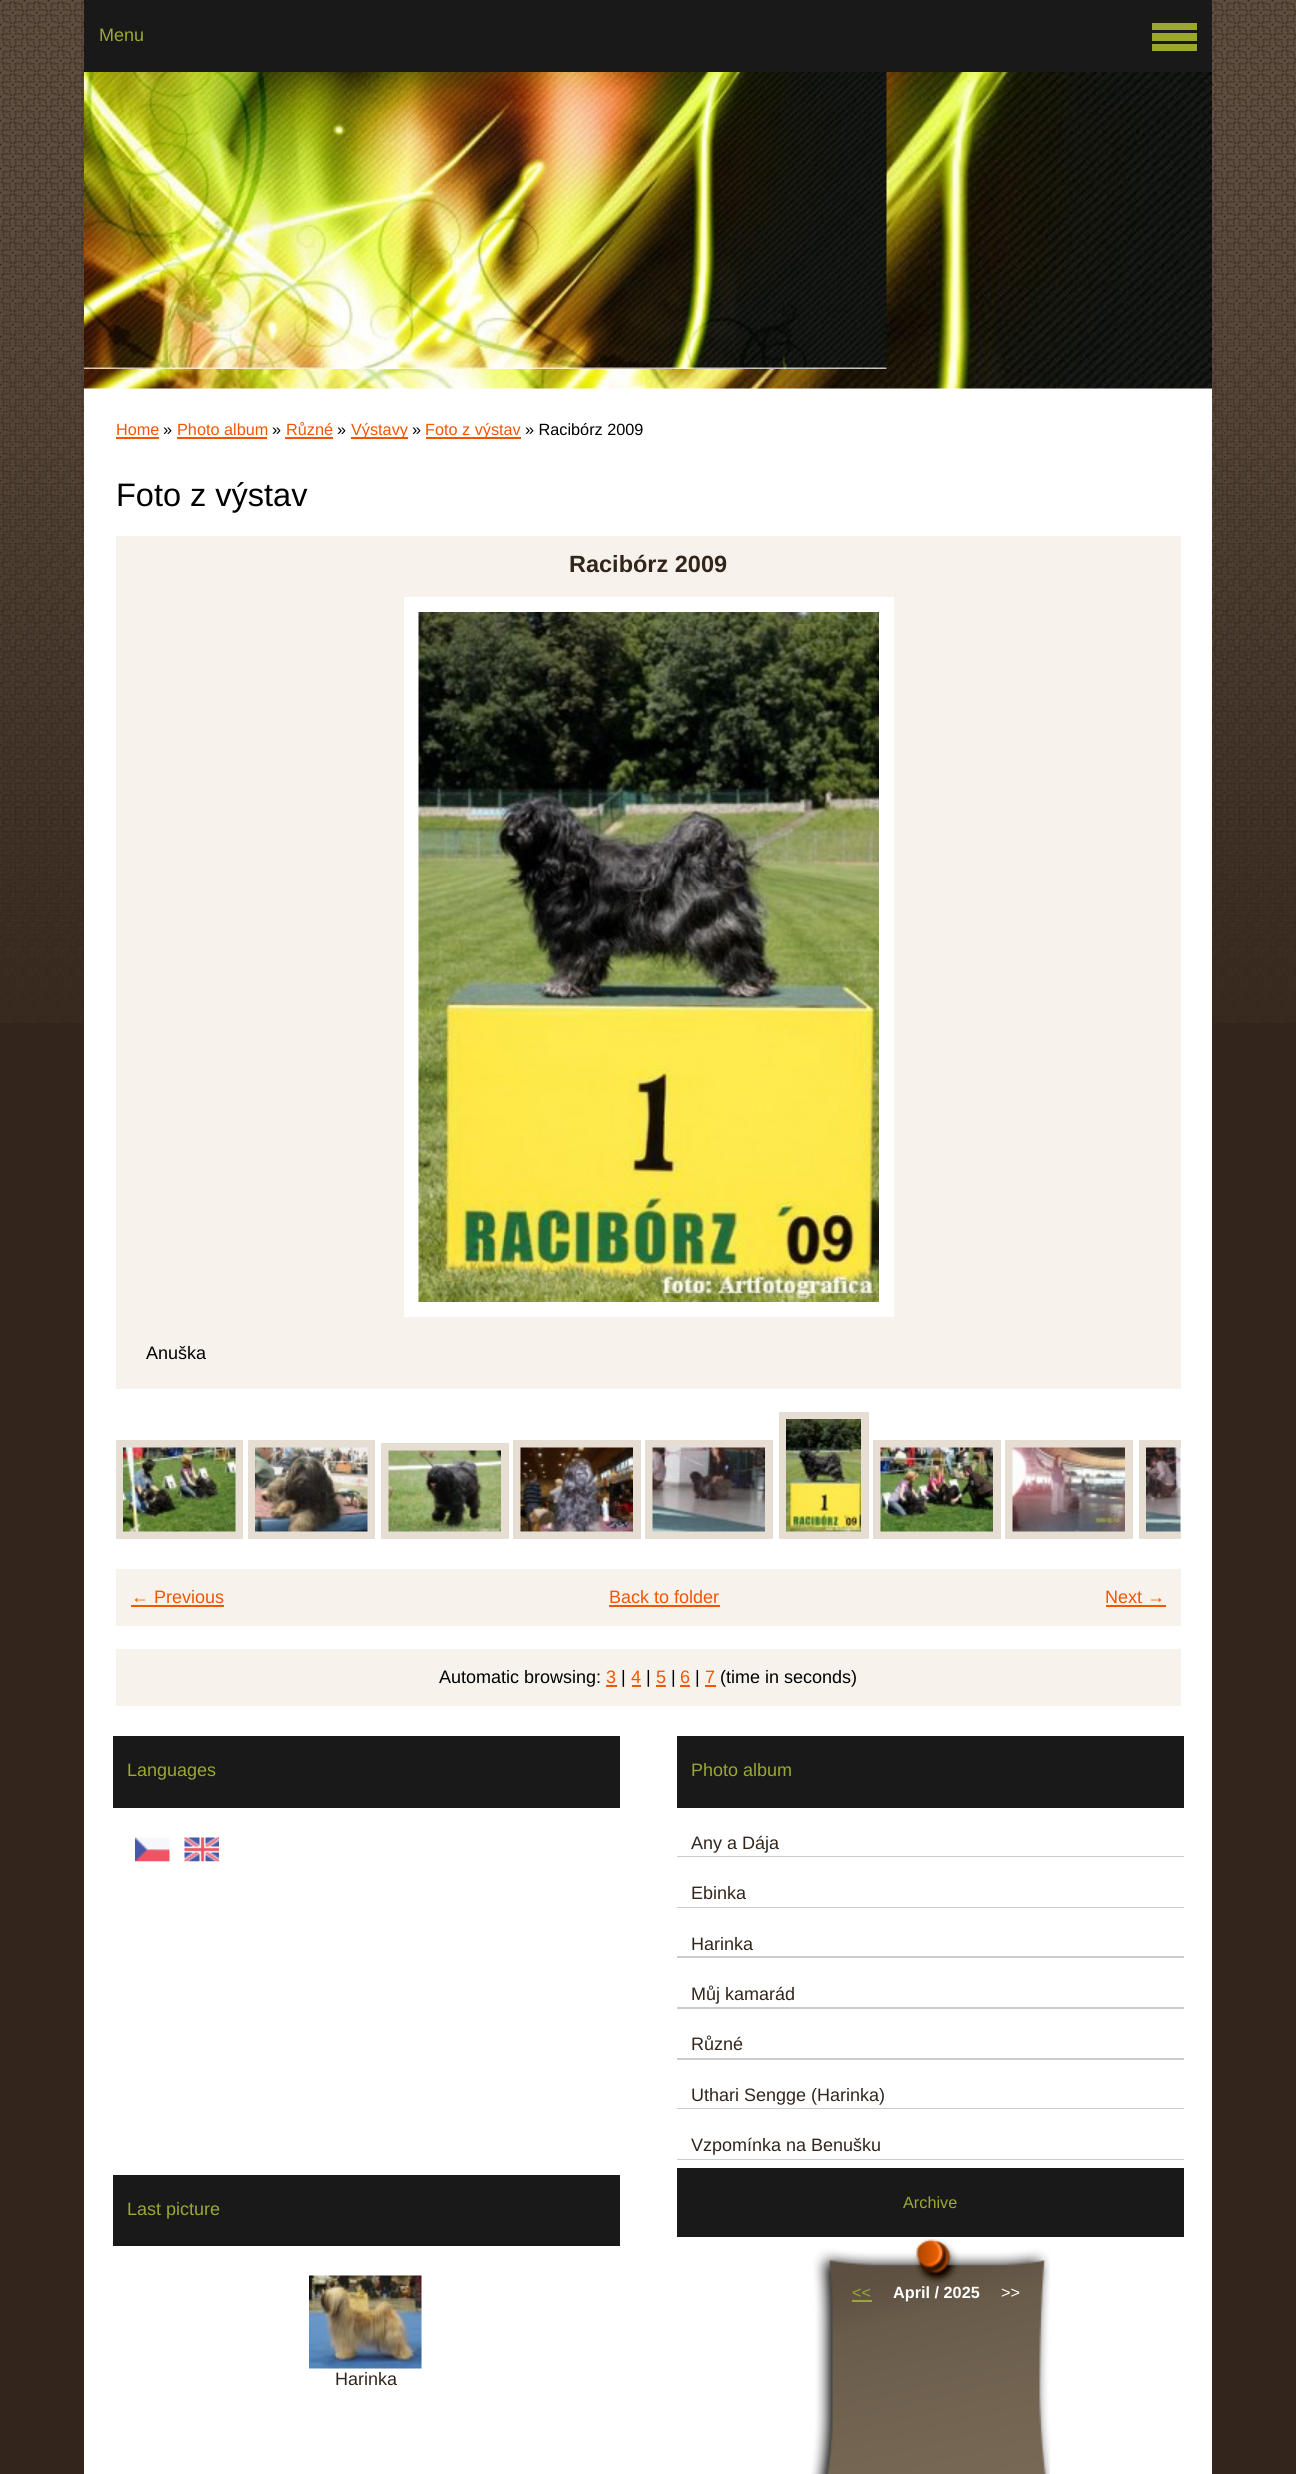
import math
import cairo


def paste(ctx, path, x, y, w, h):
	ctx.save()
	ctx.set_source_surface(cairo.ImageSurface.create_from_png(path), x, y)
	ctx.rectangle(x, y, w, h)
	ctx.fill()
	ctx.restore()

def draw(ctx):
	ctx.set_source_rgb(0.2, 0.145, 0.106)
	ctx.paint()
	paste(ctx, 'media/1.png', 0, 0, 1296, 1023)
	ctx.set_source_rgb(1, 1, 1)
	ctx.rectangle(84, 388, 1128, 2086)
	ctx.fill()
	ctx.set_source_rgb(0.098, 0.098, 0.098)
	ctx.rectangle(84, 0, 1128, 72)
	ctx.fill()
	ctx.select_font_face('Liberation Sans')
	ctx.set_font_size(18)
	ctx.set_source_rgb(0.608, 0.659, 0.196)
	ctx.move_to(99, 41)
	ctx.show_text('Menu')
	ctx.set_source_rgb(0.098, 0.098, 0.098)
	ctx.rectangle(113, 1736, 507, 72)
	ctx.fill()
	ctx.set_source_rgb(0.608, 0.659, 0.196)
	ctx.move_to(127, 1776)
	ctx.show_text('Languages')
	paste(ctx, 'media/2.png', 135, 1837, 35, 25)
	paste(ctx, 'media/3.png', 184, 1837, 35, 25)
	ctx.set_source_rgb(0.098, 0.098, 0.098)
	ctx.rectangle(677, 1736, 507, 72)
	ctx.fill()
	ctx.set_source_rgb(0.608, 0.659, 0.196)
	ctx.move_to(691, 1776)
	ctx.show_text('Photo album')
	ctx.set_source_rgb(0.8, 0.8, 0.8)
	ctx.rectangle(677, 1856, 507, 1)
	ctx.fill()
	ctx.set_source_rgb(0.2, 0.145, 0.106)
	ctx.move_to(691, 1849)
	ctx.show_text('Any a Dája')
	ctx.set_source_rgb(0.8, 0.8, 0.8)
	ctx.rectangle(677, 1907, 507, 1)
	ctx.fill()
	ctx.set_source_rgb(0.2, 0.145, 0.106)
	ctx.move_to(691, 1899)
	ctx.show_text('Ebinka')
	ctx.set_source_rgb(0.8, 0.8, 0.8)
	ctx.rectangle(677, 1956, 507, 2)
	ctx.fill()
	ctx.set_source_rgb(0.2, 0.145, 0.106)
	ctx.move_to(691, 1950)
	ctx.show_text('Harinka')
	ctx.set_source_rgb(0.8, 0.8, 0.8)
	ctx.rectangle(677, 2007, 507, 2)
	ctx.fill()
	ctx.set_source_rgb(0.2, 0.145, 0.106)
	ctx.move_to(691, 2000)
	ctx.show_text('Můj kamarád')
	ctx.set_source_rgb(0.8, 0.8, 0.8)
	ctx.rectangle(677, 2058, 507, 2)
	ctx.fill()
	ctx.set_source_rgb(0.2, 0.145, 0.106)
	ctx.move_to(691, 2050)
	ctx.show_text('Různé')
	ctx.set_source_rgb(0.8, 0.8, 0.8)
	ctx.rectangle(677, 2108, 507, 1)
	ctx.fill()
	ctx.set_source_rgb(0.2, 0.145, 0.106)
	ctx.move_to(691, 2101)
	ctx.show_text('Uthari Sengge (Harinka)')
	ctx.set_source_rgb(0.8, 0.8, 0.8)
	ctx.rectangle(677, 2159, 507, 1)
	ctx.fill()
	ctx.set_source_rgb(0.2, 0.145, 0.106)
	ctx.move_to(691, 2151)
	ctx.show_text('Vzpomínka na Benušku')
	ctx.set_source_rgb(0.098, 0.098, 0.098)
	ctx.rectangle(113, 2175, 507, 71)
	ctx.fill()
	ctx.set_source_rgb(0.608, 0.659, 0.196)
	ctx.move_to(127, 2215)
	ctx.show_text('Last picture')
	paste(ctx, 'media/4.png', 309, 2275, 113, 94)
	ctx.set_source_rgb(0.2, 0.145, 0.106)
	ctx.move_to(335, 2385)
	ctx.show_text('Harinka')
	ctx.set_source_rgb(0.098, 0.098, 0.098)
	ctx.rectangle(677, 2168, 507, 69)
	ctx.fill()
	ctx.set_font_size(16.25)
	ctx.set_source_rgb(0.608, 0.659, 0.196)
	ctx.move_to(903, 2208)
	ctx.show_text('Archive')
	paste(ctx, 'media/5.png', 811, 2239, 239, 235)
	ctx.move_to(852, 2298)
	ctx.show_text('<<')
	ctx.rectangle(852, 2300, 20, 2)
	ctx.fill()
	ctx.select_font_face('Liberation Sans', cairo.FONT_SLANT_NORMAL, cairo.FONT_WEIGHT_BOLD)
	ctx.set_source_rgb(1, 1, 1)
	ctx.move_to(893, 2298)
	ctx.show_text('April / 2025')
	ctx.select_font_face('Liberation Sans')
	ctx.move_to(1001, 2298)
	ctx.show_text('>>')
	ctx.set_source_rgb(0.953, 0.333, 0)
	ctx.move_to(116, 435)
	ctx.show_text('Home')
	ctx.rectangle(116, 437, 43, 2)
	ctx.fill()
	ctx.set_source_rgb(0, 0, 0)
	ctx.move_to(163, 435)
	ctx.show_text('»')
	ctx.set_source_rgb(0.953, 0.333, 0)
	ctx.move_to(177, 435)
	ctx.show_text('Photo album')
	ctx.rectangle(177, 437, 90, 2)
	ctx.fill()
	ctx.set_source_rgb(0, 0, 0)
	ctx.move_to(272, 435)
	ctx.show_text('»')
	ctx.set_source_rgb(0.953, 0.333, 0)
	ctx.move_to(286, 435)
	ctx.show_text('Různé')
	ctx.rectangle(285, 437, 48, 2)
	ctx.fill()
	ctx.set_source_rgb(0, 0, 0)
	ctx.move_to(337, 435)
	ctx.show_text('»')
	ctx.set_source_rgb(0.953, 0.333, 0)
	ctx.rectangle(351, 437, 57, 2)
	ctx.fill()
	ctx.move_to(351, 435)
	ctx.show_text('Výstavy')
	ctx.set_source_rgb(0, 0, 0)
	ctx.move_to(412, 435)
	ctx.show_text('»')
	ctx.set_source_rgb(0.953, 0.333, 0)
	ctx.rectangle(426, 437, 95, 2)
	ctx.fill()
	ctx.move_to(425, 435)
	ctx.show_text('Foto z výstav')
	ctx.set_source_rgb(0, 0, 0)
	ctx.move_to(525, 435)
	ctx.show_text('» Racibórz 2009')
	ctx.set_font_size(32.5)
	ctx.move_to(116, 506)
	ctx.show_text('Foto z výstav')
	ctx.set_source_rgb(0.965, 0.949, 0.925)
	ctx.rectangle(116, 536, 1065, 853)
	ctx.fill()
	ctx.select_font_face('Liberation Sans', cairo.FONT_SLANT_NORMAL, cairo.FONT_WEIGHT_BOLD)
	ctx.set_font_size(23.5)
	ctx.set_source_rgb(0.2, 0.145, 0.106)
	ctx.move_to(569, 572)
	ctx.show_text('Racibórz 2009')
	ctx.rectangle(411.5, 604.5, 475, 705)
	ctx.set_source_rgb(1, 1, 1)
	ctx.set_line_width(15)
	ctx.stroke()
	paste(ctx, 'media/6.png', 418, 612, 461, 690)
	ctx.select_font_face('Liberation Sans')
	ctx.set_font_size(18)
	ctx.set_source_rgb(0, 0, 0)
	ctx.move_to(146, 1359)
	ctx.show_text('Anuška')
	ctx.rectangle(783, 1416, 82, 119)
	ctx.set_source_rgb(0.906, 0.871, 0.827)
	ctx.set_line_width(8)
	ctx.stroke()
	ctx.rectangle(120, 1444, 119, 91)
	ctx.stroke()
	ctx.rectangle(252, 1444, 119, 91)
	ctx.stroke()
	ctx.rectangle(385, 1447, 120, 88)
	ctx.stroke()
	ctx.rectangle(517, 1444, 120, 91)
	ctx.stroke()
	ctx.rectangle(649, 1444, 120, 91)
	ctx.stroke()
	paste(ctx, 'media/7.png', 786, 1419, 75, 113)
	ctx.rectangle(877, 1444, 120, 91)
	ctx.stroke()
	ctx.rectangle(1009, 1444, 120, 91)
	ctx.stroke()
	ctx.save()
	ctx.rectangle(116, 1412, 1065, 135)
	ctx.clip()
	ctx.rectangle(1143, 1444, 119, 91)
	ctx.stroke()
	ctx.restore()
	paste(ctx, 'media/8.png', 123, 1447, 113, 85)
	paste(ctx, 'media/9.png', 255, 1447, 113, 85)
	paste(ctx, 'media/10.png', 388, 1450, 113, 82)
	paste(ctx, 'media/11.png', 520, 1447, 113, 85)
	paste(ctx, 'media/12.png', 652, 1447, 113, 85)
	paste(ctx, 'media/13.png', 880, 1447, 113, 85)
	paste(ctx, 'media/14.png', 1012, 1447, 113, 85)
	paste(ctx, 'media/15.png', 1146, 1447, 35, 85)
	ctx.set_source_rgb(0.965, 0.949, 0.925)
	ctx.rectangle(116, 1569, 1065, 57)
	ctx.fill()
	ctx.set_source_rgb(0.953, 0.333, 0)
	ctx.move_to(131, 1603)
	ctx.show_text('← Previous')
	ctx.rectangle(131, 1605, 93, 2)
	ctx.fill()
	ctx.move_to(609, 1603)
	ctx.show_text('Back to folder')
	ctx.rectangle(609, 1605, 111, 2)
	ctx.fill()
	ctx.move_to(1105, 1603)
	ctx.show_text('Next →')
	ctx.rectangle(1106, 1605, 60, 2)
	ctx.fill()
	ctx.set_source_rgb(0.965, 0.949, 0.925)
	ctx.rectangle(116, 1649, 1065, 57)
	ctx.fill()
	ctx.set_source_rgb(0, 0, 0)
	ctx.move_to(439, 1683)
	ctx.show_text('Automatic browsing:')
	ctx.set_source_rgb(0.953, 0.333, 0)
	ctx.move_to(606, 1683)
	ctx.show_text('3')
	ctx.rectangle(606, 1685, 11, 2)
	ctx.fill()
	ctx.set_source_rgb(0, 0, 0)
	ctx.move_to(621, 1683)
	ctx.show_text('|')
	ctx.set_source_rgb(0.953, 0.333, 0)
	ctx.move_to(631, 1683)
	ctx.show_text('4')
	ctx.rectangle(632, 1685, 9, 2)
	ctx.fill()
	ctx.set_source_rgb(0, 0, 0)
	ctx.move_to(646, 1683)
	ctx.show_text('|')
	ctx.set_source_rgb(0.953, 0.333, 0)
	ctx.move_to(656, 1683)
	ctx.show_text('5')
	ctx.rectangle(656, 1685, 10, 2)
	ctx.fill()
	ctx.set_source_rgb(0, 0, 0)
	ctx.move_to(671, 1683)
	ctx.show_text('|')
	ctx.set_source_rgb(0.953, 0.333, 0)
	ctx.move_to(680, 1683)
	ctx.show_text('6')
	ctx.rectangle(680, 1685, 10, 2)
	ctx.fill()
	ctx.set_source_rgb(0, 0, 0)
	ctx.move_to(695, 1683)
	ctx.show_text('|')
	ctx.set_source_rgb(0.953, 0.333, 0)
	ctx.move_to(705, 1683)
	ctx.show_text('7')
	ctx.rectangle(705, 1685, 11, 2)
	ctx.fill()
	ctx.set_source_rgb(0, 0, 0)
	ctx.move_to(720, 1683)
	ctx.show_text('(time in seconds)')
	ctx.set_source_rgb(0.608, 0.659, 0.176)
	ctx.rectangle(1152, 23, 45, 7)
	ctx.rectangle(1152, 33, 45, 8)
	ctx.rectangle(1152, 44, 45, 7)
	ctx.fill()
	paste(ctx, 'media/16.png', 84, 72, 1128, 317)
	paste(ctx, 'media/17.png', 84, 72, 803, 297)


surface = cairo.ImageSurface(cairo.FORMAT_RGB24, 1296, 2474)
ctx = cairo.Context(surface)
options = cairo.FontOptions()
options.set_hint_metrics(cairo.HINT_METRICS_OFF)
options.set_hint_style(cairo.HINT_STYLE_NONE)
ctx.set_font_options(options)
ctx.set_miter_limit(4)
draw(ctx)
surface.write_to_png('image.png')
